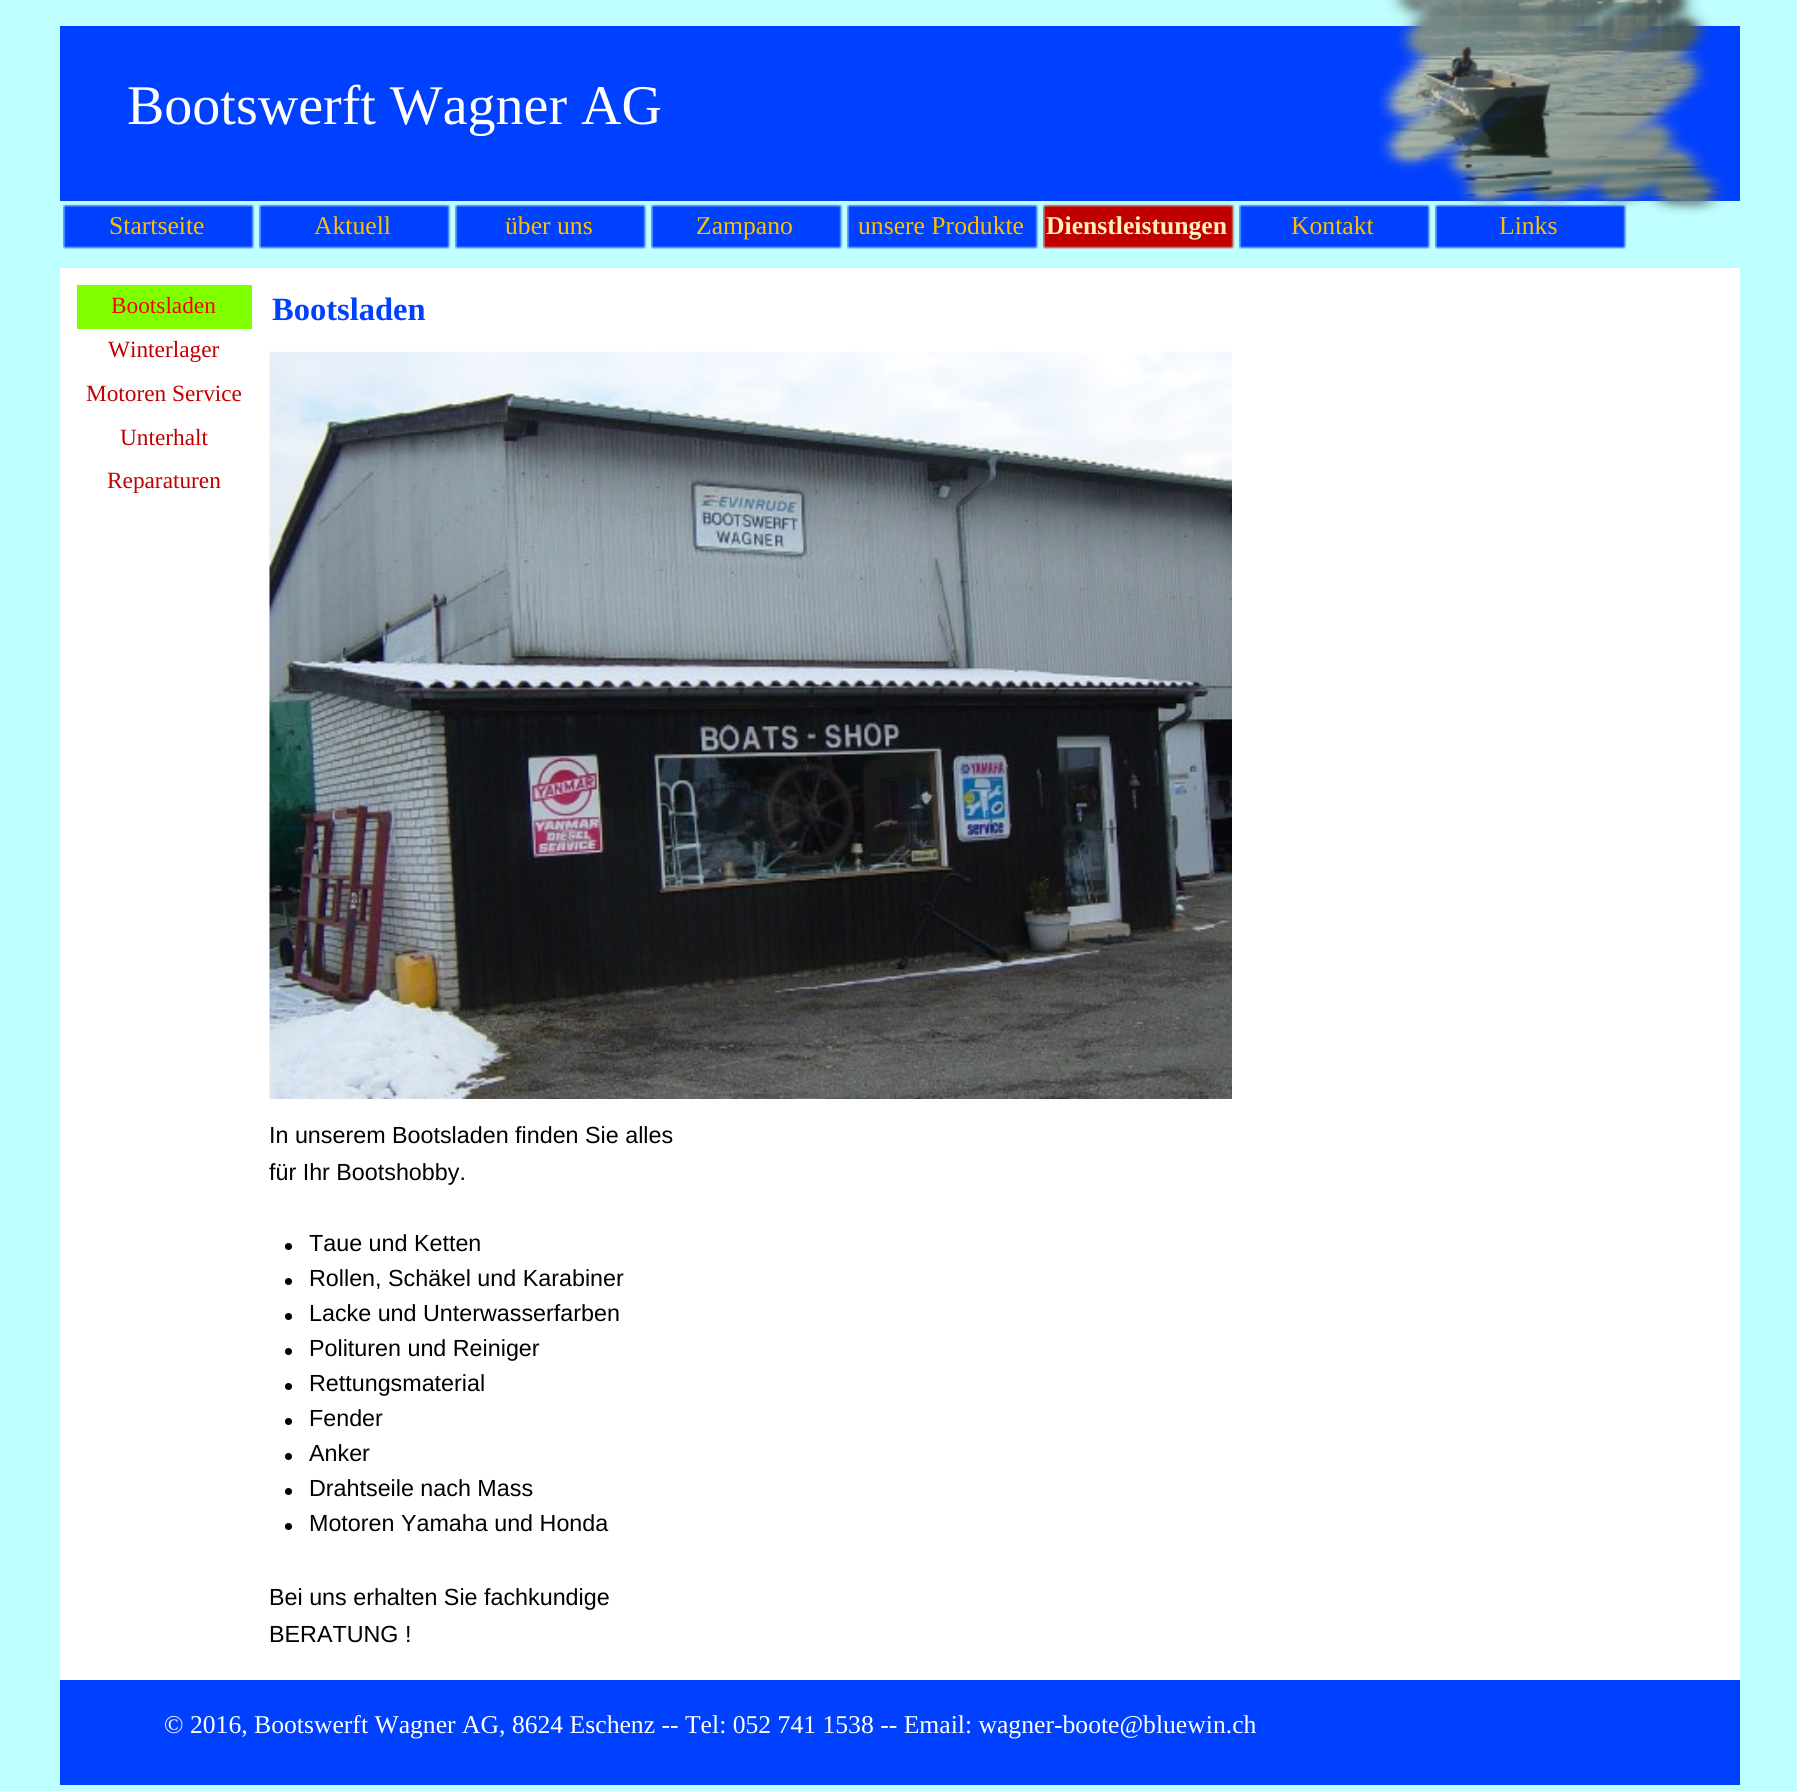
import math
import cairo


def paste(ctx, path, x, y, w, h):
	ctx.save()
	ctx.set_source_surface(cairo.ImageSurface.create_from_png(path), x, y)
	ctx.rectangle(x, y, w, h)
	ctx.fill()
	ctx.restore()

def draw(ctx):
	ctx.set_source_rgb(0.749, 1, 1)
	ctx.paint()
	ctx.set_source_rgb(0, 0.251, 1)
	ctx.rectangle(60, 26, 1680, 175)
	ctx.fill()
	ctx.select_font_face('Liberation Serif')
	ctx.set_font_size(56)
	ctx.set_source_rgb(1, 1, 1)
	ctx.move_to(127, 124)
	ctx.show_text('Bootswerft Wagner AG')
	paste(ctx, 'media/1.png', 1379, 0, 350, 215)
	paste(ctx, 'media/2.png', 63, 204, 192, 45)
	ctx.set_font_size(25.65)
	ctx.set_source_rgb(1, 0.749, 0)
	ctx.move_to(109, 234)
	ctx.show_text('Startseite')
	paste(ctx, 'media/2.png', 259, 204, 192, 45)
	ctx.move_to(314, 234)
	ctx.show_text('Aktuell')
	paste(ctx, 'media/2.png', 455, 204, 192, 45)
	ctx.move_to(505, 234)
	ctx.show_text('über uns')
	paste(ctx, 'media/2.png', 651, 204, 192, 45)
	ctx.move_to(696, 234)
	ctx.show_text('Zampano')
	paste(ctx, 'media/2.png', 847, 204, 192, 45)
	ctx.move_to(858, 234)
	ctx.show_text('unsere Produkte')
	paste(ctx, 'media/3.png', 1043, 204, 192, 45)
	ctx.select_font_face('Liberation Serif', cairo.FONT_SLANT_NORMAL, cairo.FONT_WEIGHT_BOLD)
	ctx.set_source_rgb(1, 0.937, 0.749)
	ctx.move_to(1046, 234)
	ctx.show_text('Dienstleistungen')
	paste(ctx, 'media/2.png', 1239, 204, 192, 45)
	ctx.select_font_face('Liberation Serif')
	ctx.set_source_rgb(1, 0.749, 0)
	ctx.move_to(1291, 234)
	ctx.show_text('Kontakt')
	paste(ctx, 'media/4.png', 1435, 204, 192, 45)
	ctx.move_to(1499, 234)
	ctx.show_text('Links')
	ctx.set_source_rgb(1, 1, 1)
	ctx.rectangle(60, 268, 1680, 1412)
	ctx.fill()
	ctx.set_source_rgb(0.502, 1, 0)
	ctx.rectangle(77, 285, 175, 44)
	ctx.fill()
	ctx.set_font_size(23.3)
	ctx.set_source_rgb(1, 0, 0)
	ctx.move_to(111, 313)
	ctx.show_text('Bootsladen')
	ctx.set_source_rgb(0.753, 0, 0)
	for x, y, s in [
		(108, 357, 'Winterlager'),
		(86, 401, 'Motoren Service'),
		(120, 445, 'Unterhalt'),
		(107, 488, 'Reparaturen'),
	]:
		ctx.move_to(x, y)
		ctx.show_text(s)
	ctx.select_font_face('Liberation Serif', cairo.FONT_SLANT_NORMAL, cairo.FONT_WEIGHT_BOLD)
	ctx.set_font_size(32.5)
	ctx.set_source_rgb(0, 0.251, 1)
	ctx.move_to(272, 320)
	ctx.show_text('Bootsladen')
	paste(ctx, 'media/5.png', 269, 351, 963, 748)
	ctx.select_font_face('Liberation Sans')
	ctx.set_font_size(23.3)
	ctx.set_source_rgb(0, 0, 0)
	ctx.move_to(269, 1143)
	ctx.show_text('In unserem Bootsladen finden Sie alles')
	ctx.move_to(269, 1180)
	ctx.show_text('für Ihr Bootshobby.')
	ctx.new_path()
	ctx.arc(288.5, 1246.5, 3.5, 0, 2 * math.pi)
	ctx.fill()
	ctx.move_to(309, 1251)
	ctx.show_text('Taue und Ketten')
	ctx.new_path()
	ctx.arc(288.5, 1281.5, 3.5, 0, 2 * math.pi)
	ctx.fill()
	ctx.move_to(309, 1286)
	ctx.show_text('Rollen, Schäkel und Karabiner')
	ctx.new_path()
	ctx.arc(288.5, 1316.5, 3.5, 0, 2 * math.pi)
	ctx.fill()
	ctx.move_to(309, 1321)
	ctx.show_text('Lacke und Unterwasserfarben')
	ctx.new_path()
	ctx.arc(288.5, 1351.5, 3.5, 0, 2 * math.pi)
	ctx.fill()
	ctx.move_to(309, 1356)
	ctx.show_text('Polituren und Reiniger')
	ctx.new_path()
	ctx.arc(288.5, 1386.5, 3.5, 0, 2 * math.pi)
	ctx.fill()
	ctx.move_to(309, 1391)
	ctx.show_text('Rettungsmaterial')
	ctx.new_path()
	ctx.arc(288.5, 1421.5, 3.5, 0, 2 * math.pi)
	ctx.fill()
	ctx.move_to(309, 1426)
	ctx.show_text('Fender')
	ctx.new_path()
	ctx.arc(288.5, 1456.5, 3.5, 0, 2 * math.pi)
	ctx.fill()
	ctx.move_to(309, 1461)
	ctx.show_text('Anker')
	ctx.new_path()
	ctx.arc(288.5, 1491.5, 3.5, 0, 2 * math.pi)
	ctx.fill()
	ctx.move_to(309, 1496)
	ctx.show_text('Drahtseile nach Mass')
	ctx.new_path()
	ctx.arc(288.5, 1526.5, 3.5, 0, 2 * math.pi)
	ctx.fill()
	for x, y, s in [
		(309, 1531, 'Motoren Yamaha und Honda'),
		(269, 1605, 'Bei uns erhalten Sie fachkundige'),
		(269, 1642, 'BERATUNG !'),
	]:
		ctx.move_to(x, y)
		ctx.show_text(s)
	ctx.set_source_rgb(0, 0.251, 1)
	ctx.rectangle(60, 1680, 1680, 105)
	ctx.fill()
	ctx.save()
	ctx.rectangle(165, 1710, 1394, 31)
	ctx.clip()
	ctx.select_font_face('Liberation Serif')
	ctx.set_font_size(25.65)
	ctx.set_source_rgb(1, 1, 1)
	ctx.move_to(164, 1733)
	ctx.show_text('© 2016, Bootswerft Wagner AG, 8624 Eschenz -- Tel: 052 741 1538 -- Email: wagner-boote@bluewin.ch')
	ctx.restore()


surface = cairo.ImageSurface(cairo.FORMAT_RGB24, 1797, 1791)
ctx = cairo.Context(surface)
options = cairo.FontOptions()
options.set_hint_metrics(cairo.HINT_METRICS_OFF)
options.set_hint_style(cairo.HINT_STYLE_NONE)
ctx.set_font_options(options)
ctx.set_miter_limit(4)
draw(ctx)
surface.write_to_png('image.png')
